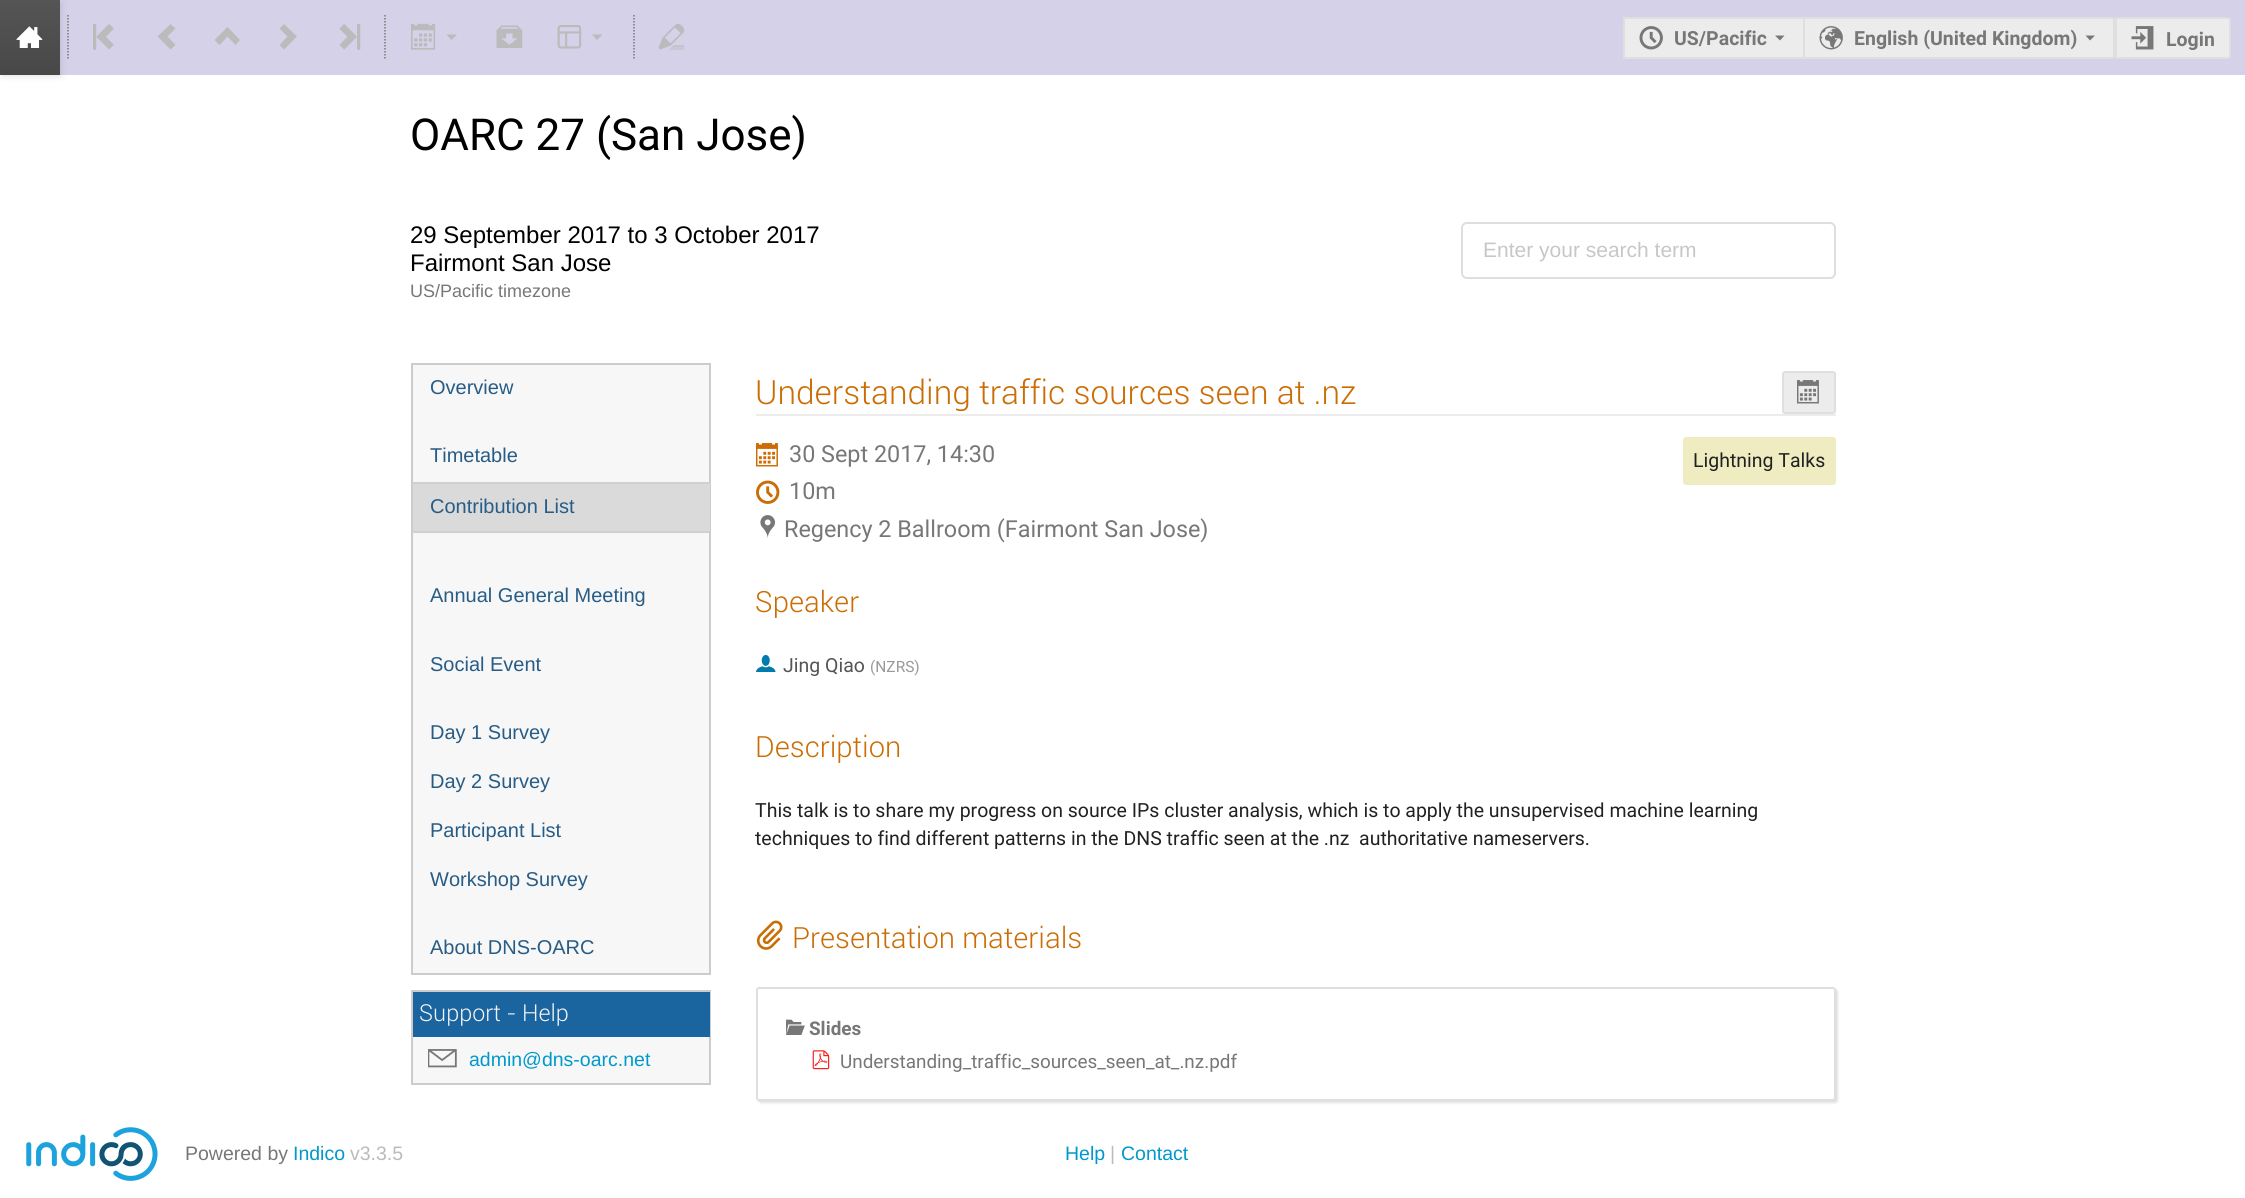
import math
import cairo


def round_path(ctx, x, y, w, h, r):
	ctx.new_sub_path()
	for i, (u, v) in enumerate([(x + w - r, y + h - r), (x + r, y + h - r), (x + r, y + r), (x + w - r, y + r)]):
		ctx.arc(u, v, r, i * math.pi / 2, (i + 1) * math.pi / 2)
	ctx.close_path()

def blur_box(ctx, x, y, w, h, r, blur, alpha):
	ctx.push_group_with_content(cairo.CONTENT_ALPHA)
	ctx.set_operator(cairo.OPERATOR_SOURCE)
	for i in range(15, -16, -2):
		e = blur * i / 6
		if min(w, h) + 2 * e > 0:
			ctx.set_source_rgba(0, 0, 0, alpha * math.erfc((i - 1) / 8.5) / 2)
			round_path(ctx, x - e, y - e, w + 2 * e, h + 2 * e, max(0, min(r + e + blur * .6, min(w, h) / 2 + e)))
			ctx.fill()
	ctx.mask(ctx.pop_group())

def paste(ctx, path, x, y, w, h):
	ctx.save()
	ctx.set_source_surface(cairo.ImageSurface.create_from_png(path), x, y)
	ctx.rectangle(x, y, w, h)
	ctx.fill()
	ctx.restore()

def draw(ctx):
	ctx.set_source_rgb(1, 1, 1)
	ctx.paint()
	ctx.set_source_rgb(0.831, 0.82, 0.914)
	ctx.rectangle(60, 0, 2185, 75)
	ctx.fill()
	ctx.set_source_rgb(0.078, 0.078, 0.078)
	blur_box(ctx, 2, 2, 60, 75, 0, 3, 0.1)
	gradient = cairo.LinearGradient(30, 0, 30, 75)
	gradient.add_color_stop_rgba(0, 0.333, 0.333, 0.333, 1)
	gradient.add_color_stop_rgba(1, 0.282, 0.282, 0.282, 1)
	ctx.set_source(gradient)
	ctx.rectangle(0, 0, 60, 75)
	ctx.fill()
	paste(ctx, 'media/1.png', 16, 26, 27, 22)
	ctx.new_path()
	ctx.move_to(68, 15)
	ctx.line_to(68, 60)
	ctx.set_source_rgb(0.467, 0.467, 0.467)
	ctx.set_line_width(1.5)
	ctx.set_dash([1.5, 1.5])
	ctx.stroke()
	paste(ctx, 'media/2.png', 93, 23, 21, 27)
	ctx.set_source_rgb(0.733, 0.733, 0.733)
	ctx.new_path()
	ctx.move_to(170.5, 49.5)
	ctx.line_to(175.5, 45)
	ctx.line_to(167.5, 36.5)
	ctx.line_to(175.5, 28.5)
	ctx.line_to(170.5, 24)
	ctx.line_to(157.5, 36.5)
	ctx.close_path()
	ctx.fill()
	ctx.new_path()
	ctx.move_to(214.5, 40)
	ctx.line_to(219.5, 45)
	ctx.line_to(227.5, 36.5)
	ctx.line_to(235.5, 45)
	ctx.line_to(240, 40)
	ctx.line_to(227.5, 27)
	ctx.close_path()
	ctx.fill()
	ctx.new_path()
	ctx.move_to(284, 24)
	ctx.line_to(279.5, 28.5)
	ctx.line_to(287.5, 36.5)
	ctx.line_to(279.5, 45)
	ctx.line_to(284, 49.5)
	ctx.line_to(297, 36.5)
	ctx.close_path()
	ctx.fill()
	paste(ctx, 'media/3.png', 339, 23, 22, 27)
	ctx.new_path()
	ctx.move_to(385, 15)
	ctx.line_to(385, 60)
	ctx.set_source_rgb(0.467, 0.467, 0.467)
	ctx.stroke()
	paste(ctx, 'media/4.png', 411, 23, 25, 27)
	ctx.set_source_rgb(0.733, 0.733, 0.733)
	ctx.new_path()
	ctx.move_to(446.5, 34.5)
	ctx.line_to(451.5, 40)
	ctx.line_to(457, 34.5)
	ctx.close_path()
	ctx.fill()
	paste(ctx, 'media/5.png', 496, 25, 27, 23)
	paste(ctx, 'media/6.png', 557, 25, 25, 24)
	ctx.new_path()
	ctx.move_to(592, 34.5)
	ctx.line_to(597, 40)
	ctx.line_to(602.5, 34.5)
	ctx.close_path()
	ctx.fill()
	ctx.new_path()
	ctx.move_to(634, 15)
	ctx.line_to(634, 60)
	ctx.set_source_rgb(0.467, 0.467, 0.467)
	ctx.stroke()
	paste(ctx, 'media/7.png', 658, 24, 27, 26)
	ctx.set_source_rgb(0.925, 0.925, 0.925)
	ctx.rectangle(1625, 19, 178, 38)
	ctx.fill()
	ctx.set_source_rgb(0.875, 0.875, 0.875)
	ctx.rectangle(1623, 17, 180, 2)
	ctx.rectangle(1623, 57, 180, 2)
	ctx.rectangle(1623, 17, 2, 42)
	ctx.fill()
	paste(ctx, 'media/8.png', 1639, 26, 24, 24)
	ctx.select_font_face('Roboto', cairo.FONT_SLANT_NORMAL, cairo.FONT_WEIGHT_BOLD)
	ctx.set_font_size(19.5)
	ctx.set_source_rgb(0.467, 0.467, 0.467)
	ctx.move_to(1674, 45)
	ctx.show_text('US/Pacific')
	ctx.new_path()
	ctx.move_to(1775, 35.5)
	ctx.line_to(1780, 40.5)
	ctx.line_to(1784.5, 35.5)
	ctx.close_path()
	ctx.fill()
	ctx.set_source_rgb(0.925, 0.925, 0.925)
	ctx.new_path()
	ctx.move_to(1804, 18)
	ctx.line_to(2112, 18)
	ctx.curve_to(2113, 18, 2114, 19, 2114, 20)
	ctx.line_to(2114, 56)
	ctx.curve_to(2114, 57, 2113, 58, 2112, 58)
	ctx.line_to(1804, 58)
	ctx.close_path()
	ctx.fill_preserve()
	ctx.set_source_rgb(0.875, 0.875, 0.875)
	ctx.set_line_width(2)
	ctx.set_dash([])
	ctx.stroke()
	paste(ctx, 'media/9.png', 1819, 26, 24, 24)
	ctx.set_source_rgb(0.467, 0.467, 0.467)
	ctx.move_to(1854, 45)
	ctx.show_text('English (United Kingdom)')
	ctx.new_path()
	ctx.move_to(2085.5, 35.5)
	ctx.line_to(2090, 40.5)
	ctx.line_to(2095, 35.5)
	ctx.close_path()
	ctx.fill()
	ctx.set_source_rgb(0.925, 0.925, 0.925)
	ctx.new_path()
	ctx.move_to(2116, 18)
	ctx.line_to(2228, 18)
	ctx.curve_to(2229, 18, 2230, 19, 2230, 20)
	ctx.line_to(2230, 56)
	ctx.curve_to(2230, 57, 2229, 58, 2228, 58)
	ctx.line_to(2116, 58)
	ctx.close_path()
	ctx.fill_preserve()
	ctx.set_source_rgb(0.875, 0.875, 0.875)
	ctx.stroke()
	paste(ctx, 'media/10.png', 2131, 26, 23, 24)
	ctx.set_source_rgb(0.467, 0.467, 0.467)
	ctx.move_to(2166, 46)
	ctx.show_text('Login')
	ctx.select_font_face('Roboto')
	ctx.set_font_size(44)
	ctx.set_source_rgb(0, 0, 0)
	ctx.move_to(410, 150)
	ctx.show_text('OARC 27 (San Jose)')
	ctx.select_font_face('Liberation Sans')
	ctx.set_font_size(24)
	ctx.move_to(410, 243)
	ctx.show_text('29 September 2017 to 3 October 2017')
	ctx.move_to(410, 271)
	ctx.show_text('Fairmont San Jose')
	ctx.set_font_size(18)
	ctx.set_source_rgb(0.467, 0.467, 0.467)
	ctx.move_to(410, 297)
	ctx.show_text('US/Pacific timezone')
	round_path(ctx, 1462, 223, 373, 55, 5)
	ctx.set_source_rgb(0.871, 0.871, 0.871)
	ctx.stroke()
	ctx.select_font_face('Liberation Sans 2')
	ctx.set_font_size(21)
	ctx.set_source_rgb(0.78, 0.78, 0.78)
	ctx.move_to(1483, 257)
	ctx.show_text('Enter your search term')
	ctx.set_source_rgb(0.965, 0.965, 0.965)
	ctx.rectangle(412, 364, 298, 610)
	ctx.fill_preserve()
	ctx.set_source_rgb(0.8, 0.8, 0.8)
	ctx.stroke()
	ctx.set_font_size(20)
	ctx.set_source_rgb(0.153, 0.361, 0.525)
	ctx.move_to(430, 394)
	ctx.show_text('Overview')
	ctx.move_to(430, 462)
	ctx.show_text('Timetable')
	ctx.set_source_rgb(0.855, 0.855, 0.855)
	ctx.rectangle(413, 484, 297, 47)
	ctx.fill()
	ctx.set_source_rgb(0.816, 0.816, 0.816)
	ctx.rectangle(413, 482, 297, 2)
	ctx.rectangle(413, 531, 297, 2)
	ctx.fill()
	ctx.set_source_rgb(0.153, 0.361, 0.525)
	for x, y, s in [
		(430, 513, 'Contribution List'),
		(430, 602, 'Annual General Meeting'),
		(430, 671, 'Social Event'),
		(430, 739, 'Day 1 Survey'),
		(430, 788, 'Day 2 Survey'),
		(430, 837, 'Participant List'),
		(430, 886, 'Workshop Survey'),
		(430, 954, 'About DNS-OARC'),
	]:
		ctx.move_to(x, y)
		ctx.show_text(s)
	ctx.set_source_rgb(0.965, 0.965, 0.965)
	ctx.rectangle(413, 1037, 296, 46)
	ctx.fill()
	ctx.rectangle(412, 991, 298, 93)
	ctx.set_source_rgb(0.8, 0.8, 0.8)
	ctx.stroke()
	ctx.set_source_rgb(0.102, 0.392, 0.627)
	ctx.rectangle(413, 992, 297, 45)
	ctx.fill()
	ctx.select_font_face('Roboto Light')
	ctx.set_font_size(23.4)
	ctx.set_source_rgb(0.953, 0.953, 0.953)
	ctx.move_to(419, 1021)
	ctx.show_text('Support - Help')
	paste(ctx, 'media/11.png', 428, 1049, 29, 19)
	ctx.select_font_face('Liberation Sans')
	ctx.set_font_size(19.5)
	ctx.set_source_rgb(0, 0.6, 0.8)
	ctx.move_to(469, 1066)
	ctx.show_text('admin@dns-oarc.net')
	ctx.set_source_rgb(0.922, 0.922, 0.922)
	ctx.rectangle(756, 414, 1080, 2)
	ctx.fill()
	ctx.select_font_face('Roboto Light')
	ctx.set_font_size(33.4)
	ctx.set_source_rgb(0.796, 0.427, 0.016)
	ctx.move_to(755, 404)
	ctx.show_text('Understanding traffic sources seen at .nz')
	ctx.set_source_rgb(0.925, 0.925, 0.925)
	round_path(ctx, 1783, 372, 52, 41, 2)
	ctx.fill_preserve()
	ctx.set_source_rgb(0.875, 0.875, 0.875)
	ctx.stroke()
	paste(ctx, 'media/12.png', 1797, 380, 22, 24)
	paste(ctx, 'media/13.png', 756, 443, 22, 24)
	ctx.select_font_face('Roboto')
	ctx.set_font_size(23.4)
	ctx.set_source_rgb(0.467, 0.467, 0.467)
	ctx.move_to(789, 462)
	ctx.show_text('30 Sept 2017, 14:30')
	paste(ctx, 'media/14.png', 756, 480, 24, 24)
	ctx.move_to(789, 499)
	ctx.show_text('10m')
	paste(ctx, 'media/15.png', 760, 515, 15, 23)
	ctx.move_to(784, 537)
	ctx.show_text('Regency 2 Ballroom (Fairmont San Jose)')
	ctx.set_source_rgb(0.937, 0.922, 0.761)
	round_path(ctx, 1683, 437, 153, 48, 3)
	ctx.fill()
	ctx.set_font_size(19.5)
	ctx.set_source_rgb(0.129, 0.129, 0.129)
	ctx.move_to(1693, 467)
	ctx.show_text('Lightning Talks')
	ctx.select_font_face('Roboto Light')
	ctx.set_font_size(29.25)
	ctx.set_source_rgb(0.796, 0.427, 0.016)
	ctx.move_to(755, 612)
	ctx.show_text('Speaker')
	paste(ctx, 'media/16.png', 756, 654, 20, 18)
	ctx.select_font_face('Roboto')
	ctx.set_font_size(19.5)
	ctx.set_source_rgb(0.333, 0.333, 0.333)
	ctx.move_to(783, 672)
	ctx.show_text('Jing Qiao')
	ctx.set_font_size(15.5)
	ctx.set_source_rgb(0.6, 0.6, 0.6)
	ctx.move_to(870, 672)
	ctx.show_text('(NZRS)')
	ctx.select_font_face('Roboto Light')
	ctx.set_font_size(29.25)
	ctx.set_source_rgb(0.796, 0.427, 0.016)
	ctx.move_to(755, 757)
	ctx.show_text('Description')
	ctx.select_font_face('Roboto')
	ctx.set_font_size(19.5)
	ctx.set_source_rgb(0.129, 0.129, 0.129)
	ctx.move_to(755, 817)
	ctx.show_text('This talk is to share my progress on source IPs cluster analysis, which is to apply the unsupervised machine learning')
	ctx.move_to(755, 845)
	ctx.show_text('techniques to find different patterns in the DNS traffic seen at the .nz  authoritative nameservers.')
	paste(ctx, 'media/17.png', 756, 920, 27, 30)
	ctx.select_font_face('Roboto Light')
	ctx.set_font_size(29.25)
	ctx.set_source_rgb(0.796, 0.427, 0.016)
	ctx.move_to(792, 948)
	ctx.show_text('Presentation materials')
	ctx.set_source_rgb(0.882, 0.882, 0.882)
	blur_box(ctx, 758, 989, 1080, 114, 3, 1, 1)
	ctx.set_source_rgb(1, 1, 1)
	round_path(ctx, 757, 988, 1078, 112, 2)
	ctx.fill_preserve()
	ctx.set_source_rgb(0.875, 0.875, 0.875)
	ctx.stroke()
	paste(ctx, 'media/18.png', 786, 1019, 19, 16)
	ctx.select_font_face('Roboto', cairo.FONT_SLANT_NORMAL, cairo.FONT_WEIGHT_BOLD)
	ctx.set_font_size(18.9)
	ctx.set_source_rgb(0.467, 0.467, 0.467)
	ctx.move_to(809, 1035)
	ctx.show_text('Slides')
	paste(ctx, 'media/19.png', 812, 1050, 18, 20)
	ctx.select_font_face('Roboto')
	ctx.move_to(840, 1068)
	ctx.show_text('Understanding_traffic_sources_seen_at_.nz.pdf')
	paste(ctx, 'media/20.png', 26, 1127, 132, 54)
	ctx.select_font_face('Liberation Sans')
	ctx.set_font_size(19.5)
	ctx.move_to(185, 1160)
	ctx.show_text('Powered by')
	ctx.set_source_rgb(0, 0.6, 0.8)
	ctx.move_to(293, 1160)
	ctx.show_text('Indico')
	ctx.set_source_rgb(0.733, 0.733, 0.733)
	ctx.move_to(350, 1160)
	ctx.show_text('v3.3.5')
	ctx.set_source_rgb(0, 0.6, 0.8)
	ctx.move_to(1065, 1160)
	ctx.show_text('Help')
	ctx.set_source_rgb(0.733, 0.733, 0.733)
	ctx.move_to(1110, 1160)
	ctx.show_text('|')
	ctx.set_source_rgb(0, 0.6, 0.8)
	ctx.move_to(1121, 1160)
	ctx.show_text('Contact')


surface = cairo.ImageSurface(cairo.FORMAT_RGB24, 2245, 1198)
ctx = cairo.Context(surface)
options = cairo.FontOptions()
options.set_hint_metrics(cairo.HINT_METRICS_OFF)
options.set_hint_style(cairo.HINT_STYLE_NONE)
ctx.set_font_options(options)
ctx.set_miter_limit(4)
draw(ctx)
surface.write_to_png('image.png')
